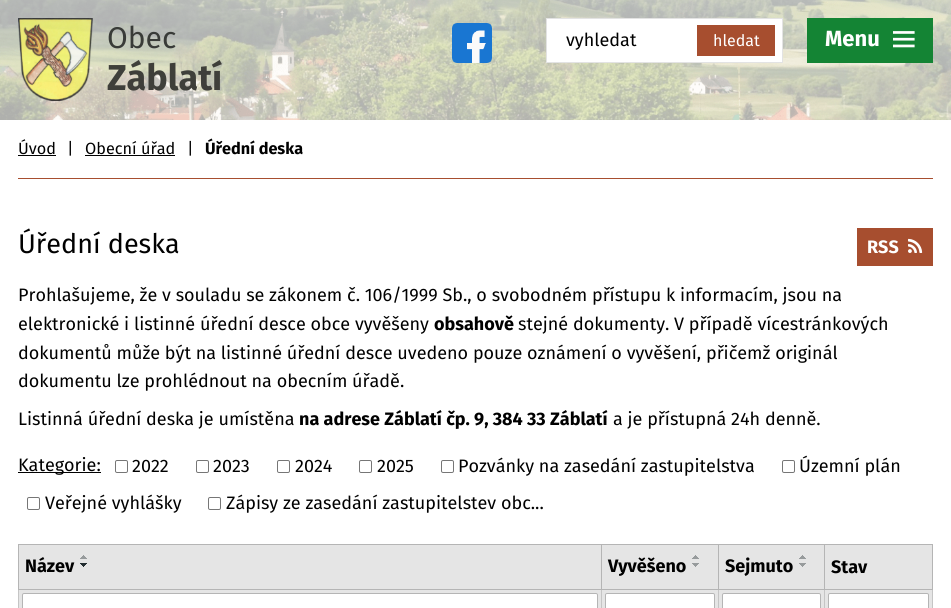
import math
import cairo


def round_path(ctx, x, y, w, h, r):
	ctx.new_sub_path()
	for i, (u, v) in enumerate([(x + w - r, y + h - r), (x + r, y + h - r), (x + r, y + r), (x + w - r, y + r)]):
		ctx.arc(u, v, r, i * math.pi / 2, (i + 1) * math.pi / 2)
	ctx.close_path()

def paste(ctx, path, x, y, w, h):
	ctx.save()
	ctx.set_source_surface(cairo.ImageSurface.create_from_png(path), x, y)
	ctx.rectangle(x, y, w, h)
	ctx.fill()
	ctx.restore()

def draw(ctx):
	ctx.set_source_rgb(1, 1, 1)
	ctx.paint()
	paste(ctx, 'media/1.png', 0, 0, 951, 120)
	paste(ctx, 'media/2.png', 18, 18, 75, 83)
	ctx.select_font_face('Fira Sans')
	ctx.set_font_size(30)
	ctx.set_source_rgb(0.224, 0.231, 0.22)
	ctx.move_to(107, 48)
	ctx.show_text('Obec')
	ctx.select_font_face('Fira Sans', cairo.FONT_SLANT_NORMAL, cairo.FONT_WEIGHT_BOLD)
	ctx.set_font_size(36)
	ctx.set_source_rgb(0.247, 0.247, 0.227)
	ctx.move_to(107, 90)
	ctx.show_text('Záblatí')
	paste(ctx, 'media/3.png', 452, 23, 40, 40)
	ctx.set_source_rgb(1, 1, 1)
	ctx.rectangle(546.5, 18.5, 236, 44)
	ctx.fill_preserve()
	ctx.set_source_rgb(0.89, 0.89, 0.89)
	ctx.set_line_width(1)
	ctx.stroke()
	ctx.select_font_face('Fira Sans')
	ctx.set_font_size(18)
	ctx.set_source_rgb(0, 0, 0)
	ctx.move_to(566, 46)
	ctx.show_text('vyhledat')
	ctx.set_source_rgb(0.655, 0.306, 0.184)
	ctx.rectangle(697, 25, 78, 31)
	ctx.fill()
	ctx.set_font_size(16)
	ctx.set_source_rgb(1, 1, 1)
	ctx.move_to(713, 46)
	ctx.show_text('hledat')
	ctx.set_source_rgb(0.082, 0.518, 0.204)
	ctx.rectangle(807, 18, 126, 45)
	ctx.fill()
	ctx.select_font_face('Fira Sans', cairo.FONT_SLANT_NORMAL, cairo.FONT_WEIGHT_BOLD)
	ctx.set_font_size(22)
	ctx.set_source_rgb(1, 1, 1)
	ctx.move_to(825, 46)
	ctx.show_text('Menu')
	paste(ctx, 'media/4.png', 893, 31, 22, 17)
	ctx.set_source_rgb(0.655, 0.306, 0.184)
	ctx.rectangle(18, 178, 915, 1)
	ctx.fill()
	ctx.select_font_face('Fira Sans')
	ctx.set_font_size(16.25)
	ctx.set_source_rgb(0, 0, 0)
	ctx.move_to(18, 154)
	ctx.show_text('Úvod')
	ctx.rectangle(18, 155, 38, 1)
	ctx.fill()
	ctx.move_to(67, 154)
	ctx.show_text('|')
	ctx.move_to(85, 154)
	ctx.show_text('Obecní úřad')
	ctx.rectangle(85, 155, 90, 1)
	ctx.fill()
	ctx.move_to(187, 154)
	ctx.show_text('|')
	ctx.select_font_face('Fira Sans', cairo.FONT_SLANT_NORMAL, cairo.FONT_WEIGHT_BOLD)
	ctx.move_to(205, 154)
	ctx.show_text('Úřední deska')
	ctx.select_font_face('Fira Sans')
	ctx.set_font_size(27)
	ctx.move_to(18, 253)
	ctx.show_text('Úřední deska')
	ctx.set_source_rgb(0.655, 0.306, 0.184)
	ctx.rectangle(857, 228, 76, 38)
	ctx.fill()
	ctx.select_font_face('Fira Sans', cairo.FONT_SLANT_NORMAL, cairo.FONT_WEIGHT_BOLD)
	ctx.set_font_size(18)
	ctx.set_source_rgb(1, 1, 1)
	ctx.move_to(867, 253)
	ctx.show_text('RSS')
	paste(ctx, 'media/5.png', 908, 238, 15, 15)
	ctx.select_font_face('Fira Sans')
	ctx.set_source_rgb(0, 0, 0)
	ctx.move_to(18, 301)
	ctx.show_text('Prohlašujeme, že v souladu se zákonem č. 106/1999 Sb., o svobodném přístupu k informacím, jsou na')
	ctx.move_to(18, 330)
	ctx.show_text('elektronické i listinné úřední desce obce vyvěšeny')
	ctx.select_font_face('Fira Sans', cairo.FONT_SLANT_NORMAL, cairo.FONT_WEIGHT_BOLD)
	ctx.move_to(434, 330)
	ctx.show_text('obsahově')
	ctx.select_font_face('Fira Sans')
	for x, y, s in [
		(518, 330, 'stejné dokumenty. V případě vícestránkových'),
		(18, 359, 'dokumentů může být na listinné úřední desce uvedeno pouze oznámení o vyvěšení, přičemž originál'),
		(18, 387, 'dokumentu lze prohlédnout na obecním úřadě.'),
		(18, 425, 'Listinná úřední deska je umístěna'),
	]:
		ctx.move_to(x, y)
		ctx.show_text(s)
	ctx.select_font_face('Fira Sans', cairo.FONT_SLANT_NORMAL, cairo.FONT_WEIGHT_BOLD)
	ctx.move_to(299, 425)
	ctx.show_text('na adrese Záblatí čp. 9, 384 33 Záblatí')
	ctx.select_font_face('Fira Sans')
	ctx.move_to(613, 425)
	ctx.show_text('a je přístupná 24h denně.')
	ctx.rectangle(18, 472, 83, 1)
	ctx.fill()
	ctx.move_to(18, 471)
	ctx.show_text('Kategorie:')
	round_path(ctx, 115.5, 460.5, 12, 12, 1.5)
	ctx.set_source_rgb(0.463, 0.463, 0.463)
	ctx.stroke()
	ctx.set_source_rgb(0, 0, 0)
	ctx.move_to(132, 472)
	ctx.show_text('2022')
	round_path(ctx, 196.5, 460.5, 12, 12, 1.5)
	ctx.set_source_rgb(0.463, 0.463, 0.463)
	ctx.stroke()
	ctx.set_source_rgb(0, 0, 0)
	ctx.move_to(213, 472)
	ctx.show_text('2023')
	round_path(ctx, 277.5, 460.5, 12, 12, 1.5)
	ctx.set_source_rgb(0.463, 0.463, 0.463)
	ctx.stroke()
	ctx.set_source_rgb(0, 0, 0)
	ctx.move_to(295, 472)
	ctx.show_text('2024')
	round_path(ctx, 359.5, 460.5, 12, 12, 1.5)
	ctx.set_source_rgb(0.463, 0.463, 0.463)
	ctx.stroke()
	ctx.set_source_rgb(0, 0, 0)
	ctx.move_to(377, 472)
	ctx.show_text('2025')
	round_path(ctx, 441.5, 460.5, 12, 12, 1.5)
	ctx.set_source_rgb(0.463, 0.463, 0.463)
	ctx.stroke()
	ctx.set_source_rgb(0, 0, 0)
	ctx.move_to(458, 472)
	ctx.show_text('Pozvánky na zasedání zastupitelstva')
	round_path(ctx, 782.5, 460.5, 12, 12, 1.5)
	ctx.set_source_rgb(0.463, 0.463, 0.463)
	ctx.stroke()
	ctx.set_source_rgb(0, 0, 0)
	ctx.move_to(799, 472)
	ctx.show_text('Územní plán')
	round_path(ctx, 27.5, 497.5, 12, 12, 1.5)
	ctx.set_source_rgb(0.463, 0.463, 0.463)
	ctx.stroke()
	ctx.set_source_rgb(0, 0, 0)
	ctx.move_to(45, 509)
	ctx.show_text('Veřejné vyhlášky')
	round_path(ctx, 208.5, 497.5, 12, 12, 1.5)
	ctx.set_source_rgb(0.463, 0.463, 0.463)
	ctx.stroke()
	ctx.set_source_rgb(0, 0, 0)
	ctx.move_to(226, 509)
	ctx.show_text('Zápisy ze zasedání zastupitelstev obc...')
	ctx.set_source_rgb(0.898, 0.898, 0.898)
	ctx.rectangle(19, 545, 582, 44)
	ctx.fill()
	ctx.set_source_rgb(0.71, 0.71, 0.71)
	ctx.rectangle(824, 544, 109, 1)
	ctx.fill()
	ctx.set_source_rgb(0.773, 0.773, 0.773)
	ctx.rectangle(932, 589, 1, 19)
	ctx.fill()
	ctx.set_source_rgb(0.71, 0.71, 0.71)
	ctx.rectangle(932, 544, 1, 46)
	ctx.fill()
	ctx.set_source_rgb(0.898, 0.898, 0.898)
	ctx.rectangle(19, 590, 913, 18)
	ctx.fill()
	ctx.set_source_rgb(0.773, 0.773, 0.773)
	ctx.rectangle(824, 589, 1, 19)
	ctx.fill()
	ctx.set_source_rgb(0.71, 0.71, 0.71)
	ctx.rectangle(824, 589, 109, 1)
	ctx.rectangle(824, 544, 1, 46)
	ctx.rectangle(718, 544, 107, 1)
	ctx.fill()
	ctx.set_source_rgb(0.773, 0.773, 0.773)
	ctx.rectangle(718, 589, 1, 19)
	ctx.fill()
	ctx.set_source_rgb(0.71, 0.71, 0.71)
	ctx.rectangle(718, 589, 107, 1)
	ctx.rectangle(718, 544, 1, 46)
	ctx.rectangle(601, 544, 118, 1)
	ctx.fill()
	ctx.set_source_rgb(0.773, 0.773, 0.773)
	ctx.rectangle(601, 589, 1, 19)
	ctx.fill()
	ctx.set_source_rgb(0.71, 0.71, 0.71)
	ctx.rectangle(601, 589, 118, 1)
	ctx.rectangle(601, 544, 1, 46)
	ctx.rectangle(18, 544, 584, 1)
	ctx.fill()
	ctx.set_source_rgb(0.773, 0.773, 0.773)
	ctx.rectangle(18, 589, 1, 19)
	ctx.fill()
	ctx.set_source_rgb(0.71, 0.71, 0.71)
	ctx.rectangle(18, 589, 584, 1)
	ctx.rectangle(18, 544, 1, 46)
	ctx.fill()
	ctx.select_font_face('Fira Sans', cairo.FONT_SLANT_NORMAL, cairo.FONT_WEIGHT_BOLD)
	ctx.set_source_rgb(0, 0, 0)
	ctx.move_to(25, 572)
	ctx.show_text('Název')
	paste(ctx, 'media/6.png', 80, 555, 7, 4)
	paste(ctx, 'media/7.png', 80, 563, 7, 4)
	ctx.set_source_rgb(0.898, 0.898, 0.898)
	ctx.rectangle(602, 545, 116, 44)
	ctx.fill()
	ctx.set_source_rgb(0, 0, 0)
	ctx.move_to(608, 572)
	ctx.show_text('Vyvěšeno')
	paste(ctx, 'media/6.png', 692, 555, 7, 4)
	paste(ctx, 'media/8.png', 692, 563, 7, 4)
	ctx.set_source_rgb(0.898, 0.898, 0.898)
	ctx.rectangle(719, 545, 105, 44)
	ctx.fill()
	ctx.set_source_rgb(0, 0, 0)
	ctx.move_to(725, 572)
	ctx.show_text('Sejmuto')
	paste(ctx, 'media/6.png', 799, 555, 7, 4)
	paste(ctx, 'media/8.png', 799, 563, 7, 4)
	ctx.set_source_rgb(0.898, 0.898, 0.898)
	ctx.rectangle(825, 545, 107, 44)
	ctx.fill()
	ctx.set_source_rgb(0, 0, 0)
	ctx.move_to(831, 573)
	ctx.show_text('Stav')
	ctx.set_source_rgb(1, 1, 1)
	round_path(ctx, 22.5, 593.5, 575, 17, 1.5)
	ctx.fill_preserve()
	ctx.set_source_rgb(0.71, 0.71, 0.71)
	ctx.stroke()
	ctx.set_source_rgb(1, 1, 1)
	round_path(ctx, 605.5, 593.5, 109, 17, 1.5)
	ctx.fill_preserve()
	ctx.set_source_rgb(0.71, 0.71, 0.71)
	ctx.stroke()
	ctx.set_source_rgb(1, 1, 1)
	round_path(ctx, 722.5, 593.5, 98, 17, 1.5)
	ctx.fill_preserve()
	ctx.set_source_rgb(0.71, 0.71, 0.71)
	ctx.stroke()
	ctx.set_source_rgb(1, 1, 1)
	round_path(ctx, 828.5, 593.5, 100, 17, 1.5)
	ctx.fill_preserve()
	ctx.set_source_rgb(0.71, 0.71, 0.71)
	ctx.stroke()


surface = cairo.ImageSurface(cairo.FORMAT_RGB24, 951, 608)
ctx = cairo.Context(surface)
options = cairo.FontOptions()
options.set_hint_metrics(cairo.HINT_METRICS_OFF)
options.set_hint_style(cairo.HINT_STYLE_NONE)
ctx.set_font_options(options)
ctx.set_miter_limit(4)
draw(ctx)
surface.write_to_png('image.png')
